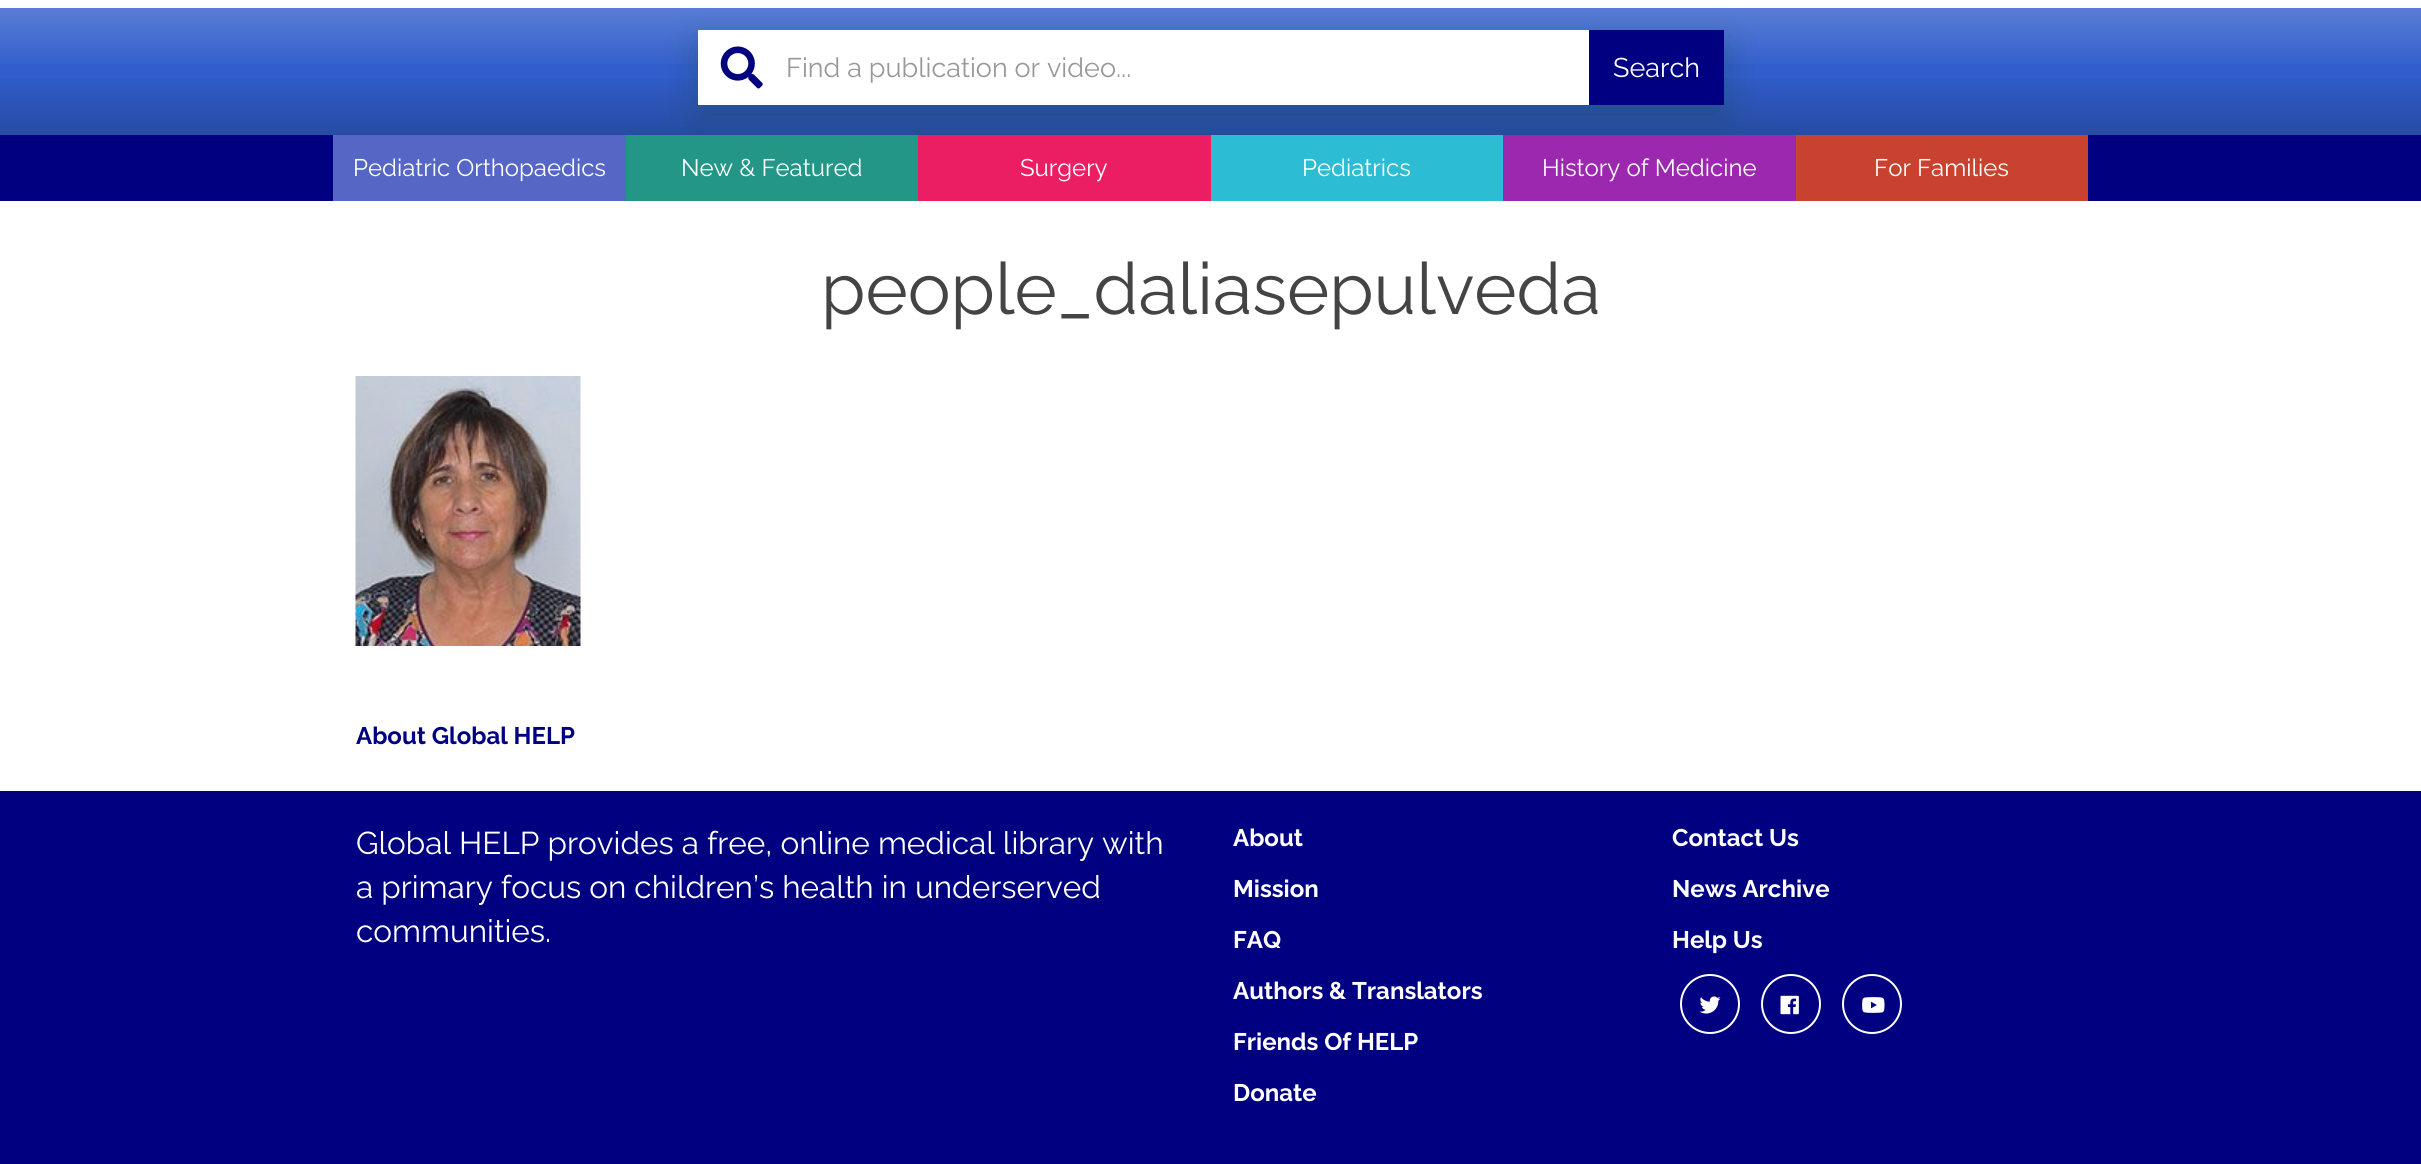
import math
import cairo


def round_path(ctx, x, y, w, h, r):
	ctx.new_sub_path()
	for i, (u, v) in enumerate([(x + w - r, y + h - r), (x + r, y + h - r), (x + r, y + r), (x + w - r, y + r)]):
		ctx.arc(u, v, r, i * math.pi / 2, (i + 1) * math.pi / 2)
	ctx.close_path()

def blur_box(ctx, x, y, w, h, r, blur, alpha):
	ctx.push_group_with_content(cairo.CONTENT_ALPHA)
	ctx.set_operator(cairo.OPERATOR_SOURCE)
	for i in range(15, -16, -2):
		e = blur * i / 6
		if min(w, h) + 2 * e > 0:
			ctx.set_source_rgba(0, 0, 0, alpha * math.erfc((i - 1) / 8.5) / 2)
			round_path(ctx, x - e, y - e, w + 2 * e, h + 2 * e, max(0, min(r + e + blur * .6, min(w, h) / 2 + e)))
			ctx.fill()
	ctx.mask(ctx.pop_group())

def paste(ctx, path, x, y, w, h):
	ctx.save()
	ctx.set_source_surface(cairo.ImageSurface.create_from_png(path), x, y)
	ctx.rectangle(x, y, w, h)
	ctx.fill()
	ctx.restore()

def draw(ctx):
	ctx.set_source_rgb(0.192, 0.369, 0.8)
	ctx.paint()
	ctx.set_source_rgb(1, 1, 1)
	ctx.rectangle(0, 0, 2421, 8)
	ctx.fill()
	gradient = cairo.LinearGradient(1211, -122, 1211, 135)
	gradient.add_color_stop_rgba(0.75, 0, 0, 0, 0)
	gradient.add_color_stop_rgba(1, 0, 0, 0, 0.2)
	ctx.set_source(gradient)
	ctx.rectangle(0, 78, 2421, 57)
	ctx.fill()
	gradient = cairo.LinearGradient(1211, -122, 1211, 135)
	gradient.add_color_stop_rgba(0.5, 1, 1, 1, 0.2)
	gradient.add_color_stop_rgba(0.75, 1, 1, 1, 0)
	ctx.set_source(gradient)
	ctx.rectangle(0, 8, 2421, 56)
	ctx.fill()
	ctx.set_source_rgb(0.09, 0.267, 0.255)
	blur_box(ctx, 698, 44, 1026, 75, 0, 19.5, 0.35)
	ctx.set_source_rgb(1, 1, 1)
	ctx.rectangle(698, 30, 891, 75)
	ctx.fill()
	paste(ctx, 'media/1.png', 720, 46, 43, 43)
	ctx.select_font_face('Raleway')
	ctx.set_font_size(27)
	ctx.set_source_rgb(0.6, 0.6, 0.6)
	ctx.move_to(786, 77)
	ctx.show_text('Find a publication or video...')
	ctx.set_source_rgb(0, 0, 0.502)
	ctx.rectangle(1589, 30, 135, 75)
	ctx.fill()
	ctx.set_source_rgb(1, 1, 1)
	ctx.move_to(1613, 77)
	ctx.show_text('Search')
	ctx.set_source_rgb(0, 0, 0.502)
	ctx.rectangle(0, 135, 2421, 66)
	ctx.fill()
	ctx.set_source_rgb(0.337, 0.4, 0.769)
	ctx.rectangle(333, 135, 293, 66)
	ctx.fill()
	ctx.set_font_size(24)
	ctx.set_source_rgb(1, 1, 1)
	ctx.move_to(353, 176)
	ctx.show_text('Pediatric Orthopaedics')
	ctx.set_source_rgb(0.137, 0.588, 0.529)
	ctx.rectangle(626, 135, 292, 66)
	ctx.fill()
	ctx.set_source_rgb(1, 1, 1)
	ctx.move_to(681, 176)
	ctx.show_text('New & Featured')
	ctx.set_source_rgb(0.918, 0.118, 0.388)
	ctx.rectangle(918, 135, 293, 66)
	ctx.fill()
	ctx.set_source_rgb(1, 1, 1)
	ctx.move_to(1020, 176)
	ctx.show_text('Surgery')
	ctx.set_source_rgb(0.173, 0.737, 0.831)
	ctx.rectangle(1211, 135, 292, 66)
	ctx.fill()
	ctx.set_source_rgb(1, 1, 1)
	ctx.move_to(1302, 176)
	ctx.show_text('Pediatrics')
	ctx.set_source_rgb(0.612, 0.157, 0.686)
	ctx.rectangle(1503, 135, 293, 66)
	ctx.fill()
	ctx.set_source_rgb(1, 1, 1)
	ctx.move_to(1542, 176)
	ctx.show_text('History of Medicine')
	ctx.set_source_rgb(0.788, 0.259, 0.184)
	ctx.rectangle(1796, 135, 292, 66)
	ctx.fill()
	ctx.set_source_rgb(1, 1, 1)
	ctx.move_to(1874, 176)
	ctx.show_text('For Families')
	ctx.rectangle(0, 201, 2421, 590)
	ctx.fill()
	ctx.set_font_size(72)
	ctx.set_source_rgb(0.267, 0.267, 0.267)
	ctx.move_to(821, 314)
	ctx.show_text('people_daliasepulveda')
	paste(ctx, 'media/2.png', 355, 376, 226, 270)
	ctx.select_font_face('Raleway', cairo.FONT_SLANT_NORMAL, cairo.FONT_WEIGHT_BOLD)
	ctx.set_font_size(24)
	ctx.set_source_rgb(0, 0, 0.502)
	ctx.move_to(356, 744)
	ctx.show_text('About Global HELP')
	ctx.rectangle(0, 791, 2421, 373)
	ctx.fill()
	ctx.select_font_face('Raleway')
	ctx.set_font_size(31.5)
	ctx.set_source_rgb(1, 1, 1)
	for x, y, s in [
		(356, 854, 'Global HELP provides a free, online medical library with'),
		(356, 898, 'a primary focus on children’s health in underserved'),
		(356, 942, 'communities.'),
	]:
		ctx.move_to(x, y)
		ctx.show_text(s)
	ctx.select_font_face('Raleway', cairo.FONT_SLANT_NORMAL, cairo.FONT_WEIGHT_BOLD)
	ctx.set_font_size(24)
	for x, y, s in [
		(1233, 846, 'About'),
		(1233, 897, 'Mission'),
		(1233, 948, 'FAQ'),
		(1233, 999, 'Authors & Translators'),
		(1233, 1050, 'Friends Of HELP'),
		(1233, 1101, 'Donate'),
		(1672, 846, 'Contact Us'),
		(1672, 897, 'News Archive'),
		(1672, 948, 'Help Us'),
	]:
		ctx.move_to(x, y)
		ctx.show_text(s)
	ctx.new_path()
	ctx.arc(1710, 1004, 29, 0, 2 * math.pi)
	ctx.stroke()
	paste(ctx, 'media/3.png', 1699, 996, 22, 18)
	ctx.arc(1791, 1004, 29, 0, 2 * math.pi)
	ctx.stroke()
	paste(ctx, 'media/4.png', 1780, 995, 19, 20)
	ctx.arc(1872, 1004, 29, 0, 2 * math.pi)
	ctx.stroke()
	paste(ctx, 'media/5.png', 1862, 997, 23, 16)


surface = cairo.ImageSurface(cairo.FORMAT_RGB24, 2421, 1164)
ctx = cairo.Context(surface)
options = cairo.FontOptions()
options.set_hint_metrics(cairo.HINT_METRICS_OFF)
options.set_hint_style(cairo.HINT_STYLE_NONE)
ctx.set_font_options(options)
ctx.set_miter_limit(4)
draw(ctx)
surface.write_to_png('image.png')
